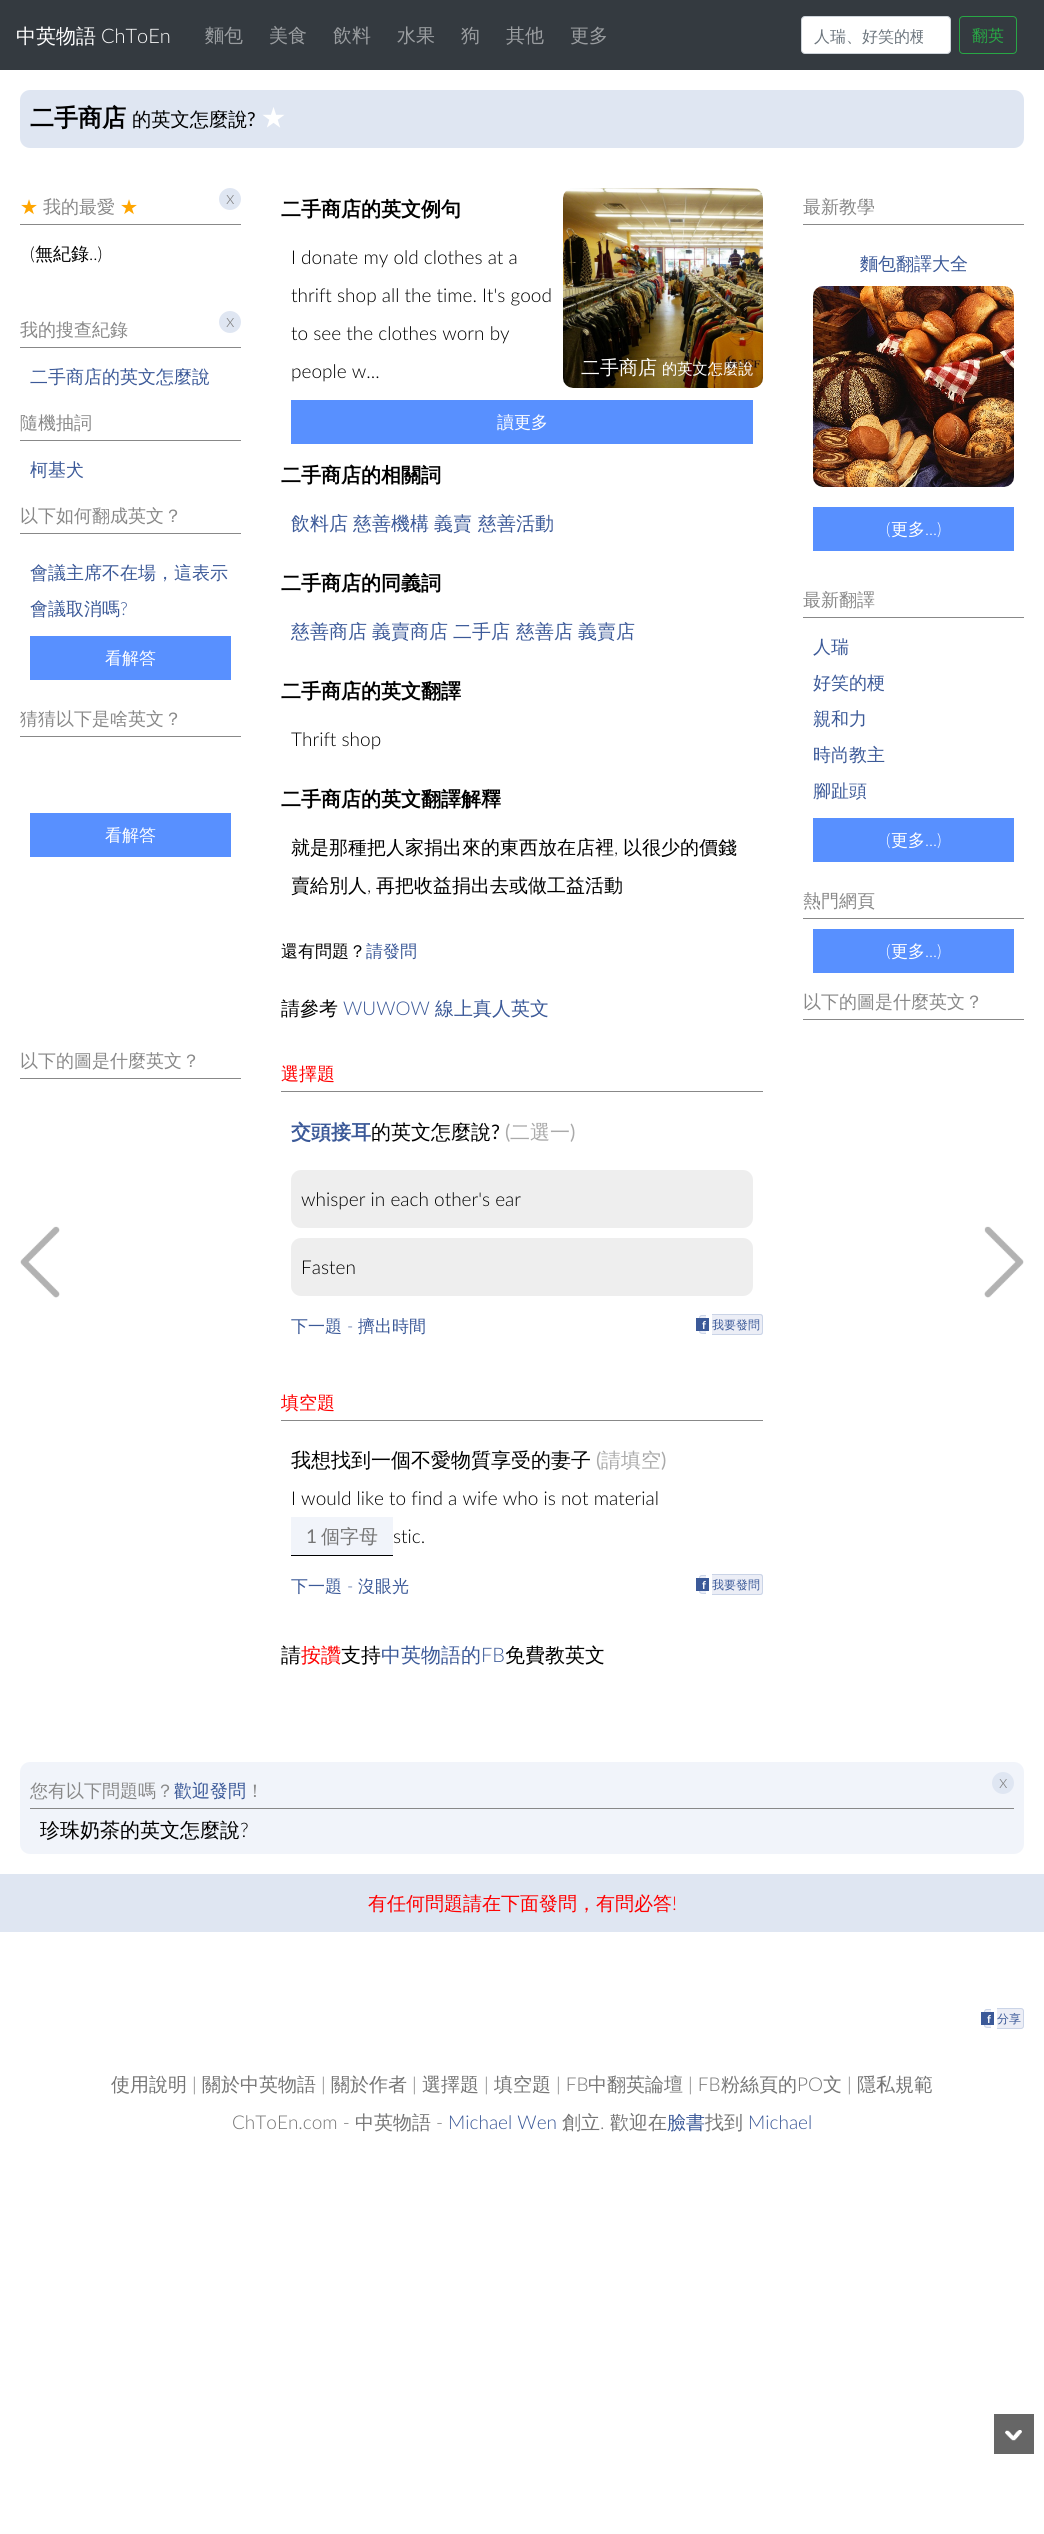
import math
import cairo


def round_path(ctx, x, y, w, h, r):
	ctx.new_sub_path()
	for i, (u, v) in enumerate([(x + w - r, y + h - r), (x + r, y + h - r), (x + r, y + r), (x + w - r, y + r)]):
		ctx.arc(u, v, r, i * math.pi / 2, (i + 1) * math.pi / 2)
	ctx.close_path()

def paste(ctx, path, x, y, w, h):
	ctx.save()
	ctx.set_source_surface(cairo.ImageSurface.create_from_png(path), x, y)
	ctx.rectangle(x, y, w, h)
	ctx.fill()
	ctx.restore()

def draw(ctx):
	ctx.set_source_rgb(1, 1, 1)
	ctx.paint()
	ctx.set_source_rgb(0.204, 0.227, 0.251)
	ctx.rectangle(0, 0, 1044, 70)
	ctx.fill()
	ctx.select_font_face('WenQuanYi Zen Hei Medium')
	ctx.set_font_size(20)
	ctx.set_source_rgb(1, 1, 1)
	ctx.move_to(16, 43)
	ctx.show_text('中英物語')
	ctx.select_font_face('Lato Light')
	ctx.move_to(101, 43)
	ctx.show_text('ChToEn')
	ctx.select_font_face('WenQuanYi Zen Hei Medium')
	ctx.set_font_size(19)
	ctx.set_source_rgb(0.604, 0.616, 0.627)
	for x, y, s in [
		(205, 42, '麵包'),
		(269, 42, '美食'),
		(333, 42, '飲料'),
		(397, 42, '水果'),
		(461, 42, '狗'),
		(506, 42, '其他'),
		(570, 42, '更多'),
	]:
		ctx.move_to(x, y)
		ctx.show_text(s)
	ctx.set_source_rgb(1, 1, 1)
	round_path(ctx, 801.5, 16.5, 149, 37, 3.5)
	ctx.fill_preserve()
	ctx.set_source_rgb(0.808, 0.831, 0.855)
	ctx.set_line_width(1)
	ctx.stroke()
	ctx.save()
	ctx.rectangle(814, 26, 109, 22)
	ctx.clip()
	ctx.set_font_size(16)
	ctx.set_source_rgb(0.424, 0.459, 0.49)
	ctx.move_to(814, 42)
	ctx.show_text('人瑞、好笑的梗')
	ctx.restore()
	round_path(ctx, 959.5, 16.5, 57, 37, 3.5)
	ctx.set_source_rgb(0.157, 0.655, 0.271)
	ctx.stroke()
	ctx.set_font_size(16)
	ctx.move_to(972, 41)
	ctx.show_text('翻英')
	ctx.set_source_rgb(0.875, 0.902, 0.949)
	round_path(ctx, 20, 90, 1004, 58, 10)
	ctx.fill()
	ctx.select_font_face('WenQuanYi Zen Hei', cairo.FONT_SLANT_NORMAL, cairo.FONT_WEIGHT_BOLD)
	ctx.set_font_size(24)
	ctx.set_source_rgb(0, 0, 0)
	ctx.move_to(30, 126)
	ctx.show_text('二手商店')
	ctx.select_font_face('WenQuanYi Zen Hei Medium')
	ctx.set_font_size(19.25)
	ctx.move_to(132, 126)
	ctx.show_text('的英文怎麼說')
	ctx.select_font_face('Lato')
	ctx.move_to(247, 126)
	ctx.show_text('?')
	ctx.select_font_face('WenQuanYi Zen Hei Medium')
	ctx.set_font_size(25)
	ctx.set_source_rgb(1, 1, 1)
	ctx.move_to(261, 126)
	ctx.show_text('★')
	ctx.set_source_rgb(0.533, 0.533, 0.533)
	ctx.rectangle(20, 224, 221, 1)
	ctx.fill()
	ctx.set_font_size(18)
	ctx.set_source_rgb(1, 0.647, 0)
	ctx.move_to(20, 213)
	ctx.show_text('★')
	ctx.set_source_rgb(0.533, 0.533, 0.533)
	ctx.move_to(43, 213)
	ctx.show_text('我的最愛')
	ctx.set_source_rgb(1, 0.647, 0)
	ctx.move_to(120, 213)
	ctx.show_text('★')
	ctx.set_source_rgb(0.875, 0.902, 0.949)
	ctx.new_path()
	ctx.arc(230, 199, 11, 0, 2 * math.pi)
	ctx.fill()
	ctx.select_font_face('Lato Light')
	ctx.set_source_rgb(0.502, 0.502, 0.502)
	ctx.move_to(226, 204)
	ctx.show_text('x')
	ctx.set_source_rgb(0, 0, 0)
	ctx.move_to(30, 260)
	ctx.show_text('(')
	ctx.select_font_face('WenQuanYi Zen Hei Medium')
	ctx.move_to(35, 260)
	ctx.show_text('無紀錄')
	ctx.select_font_face('Lato Light')
	ctx.move_to(89, 260)
	ctx.show_text('..)')
	ctx.set_source_rgb(0.533, 0.533, 0.533)
	ctx.rectangle(20, 347, 221, 1)
	ctx.fill()
	ctx.select_font_face('WenQuanYi Zen Hei Medium')
	ctx.move_to(20, 336)
	ctx.show_text('我的搜查紀錄')
	ctx.set_source_rgb(0.875, 0.902, 0.949)
	ctx.new_path()
	ctx.arc(230, 322, 11, 0, 2 * math.pi)
	ctx.fill()
	ctx.select_font_face('Lato Light')
	ctx.set_source_rgb(0.502, 0.502, 0.502)
	ctx.move_to(226, 327)
	ctx.show_text('x')
	ctx.select_font_face('WenQuanYi Zen Hei Medium')
	ctx.set_source_rgb(0.231, 0.349, 0.596)
	ctx.move_to(30, 383)
	ctx.show_text('二手商店的英文怎麼說')
	ctx.set_source_rgb(0.533, 0.533, 0.533)
	ctx.rectangle(20, 440, 221, 1)
	ctx.fill()
	ctx.move_to(20, 429)
	ctx.show_text('隨機抽詞')
	ctx.set_source_rgb(0.231, 0.349, 0.596)
	ctx.move_to(30, 476)
	ctx.show_text('柯基犬')
	ctx.set_source_rgb(0.533, 0.533, 0.533)
	ctx.rectangle(20, 533, 221, 1)
	ctx.fill()
	ctx.move_to(20, 522)
	ctx.show_text('以下如何翻成英文？')
	ctx.set_source_rgb(0.231, 0.349, 0.596)
	ctx.move_to(30, 579)
	ctx.show_text('會議主席不在場，這表示')
	ctx.move_to(30, 615)
	ctx.show_text('會議取消嗎')
	ctx.select_font_face('Lato Light')
	ctx.move_to(120, 615)
	ctx.show_text('?')
	ctx.set_source_rgb(0.345, 0.565, 1)
	ctx.rectangle(30, 636, 201, 44)
	ctx.fill()
	ctx.select_font_face('WenQuanYi Zen Hei Medium')
	ctx.set_font_size(17)
	ctx.set_source_rgb(1, 1, 1)
	ctx.move_to(105, 664)
	ctx.show_text('看解答')
	ctx.set_source_rgb(0.533, 0.533, 0.533)
	ctx.rectangle(20, 736, 221, 1)
	ctx.fill()
	ctx.set_font_size(18)
	ctx.move_to(20, 725)
	ctx.show_text('猜猜以下是啥英文？')
	ctx.set_source_rgb(0.345, 0.565, 1)
	ctx.rectangle(30, 813, 201, 44)
	ctx.fill()
	ctx.set_font_size(17)
	ctx.set_source_rgb(1, 1, 1)
	ctx.move_to(105, 841)
	ctx.show_text('看解答')
	ctx.set_source_rgb(0.533, 0.533, 0.533)
	ctx.rectangle(20, 1078, 221, 1)
	ctx.fill()
	ctx.set_font_size(18)
	ctx.move_to(20, 1067)
	ctx.show_text('以下的圖是什麼英文？')
	ctx.select_font_face('WenQuanYi Zen Hei', cairo.FONT_SLANT_NORMAL, cairo.FONT_WEIGHT_BOLD)
	ctx.set_font_size(20)
	ctx.set_source_rgb(0, 0, 0)
	ctx.move_to(281, 216)
	ctx.show_text('二手商店的英文例句')
	ctx.select_font_face('Lato Light')
	ctx.set_font_size(19)
	for x, y, s in [
		(291, 264, 'I donate my old clothes at a'),
		(291, 302, 'thrift shop all the time. It\'s good'),
		(291, 340, 'to see the clothes worn by'),
		(291, 378, 'people w...'),
	]:
		ctx.move_to(x, y)
		ctx.show_text(s)
	ctx.set_source_rgb(0.345, 0.565, 1)
	ctx.rectangle(291, 400, 462, 44)
	ctx.fill()
	ctx.select_font_face('WenQuanYi Zen Hei Medium')
	ctx.set_font_size(17)
	ctx.set_source_rgb(1, 1, 1)
	ctx.move_to(497, 428)
	ctx.show_text('讀更多')
	paste(ctx, 'media/1.png', 563, 188, 200, 200)
	ctx.set_font_size(19)
	ctx.move_to(581, 374)
	ctx.show_text('二手商店')
	ctx.set_font_size(15.25)
	ctx.move_to(662, 374)
	ctx.show_text('的英文怎麼說')
	ctx.select_font_face('WenQuanYi Zen Hei', cairo.FONT_SLANT_NORMAL, cairo.FONT_WEIGHT_BOLD)
	ctx.set_font_size(20)
	ctx.set_source_rgb(0, 0, 0)
	ctx.move_to(281, 482)
	ctx.show_text('二手商店的相關詞')
	ctx.select_font_face('WenQuanYi Zen Hei Medium')
	ctx.set_font_size(19)
	ctx.set_source_rgb(0.231, 0.349, 0.596)
	for x, y, s in [
		(291, 530, '飲料店'),
		(353, 530, '慈善機構'),
		(434, 530, '義賣'),
		(478, 530, '慈善活動'),
	]:
		ctx.move_to(x, y)
		ctx.show_text(s)
	ctx.select_font_face('WenQuanYi Zen Hei', cairo.FONT_SLANT_NORMAL, cairo.FONT_WEIGHT_BOLD)
	ctx.set_font_size(20)
	ctx.set_source_rgb(0, 0, 0)
	ctx.move_to(281, 590)
	ctx.show_text('二手商店的同義詞')
	ctx.select_font_face('WenQuanYi Zen Hei Medium')
	ctx.set_font_size(19)
	ctx.set_source_rgb(0.231, 0.349, 0.596)
	for x, y, s in [
		(291, 638, '慈善商店'),
		(372, 638, '義賣商店'),
		(453, 638, '二手店'),
		(516, 638, '慈善店'),
		(578, 638, '義賣店'),
	]:
		ctx.move_to(x, y)
		ctx.show_text(s)
	ctx.select_font_face('WenQuanYi Zen Hei', cairo.FONT_SLANT_NORMAL, cairo.FONT_WEIGHT_BOLD)
	ctx.set_font_size(20)
	ctx.set_source_rgb(0, 0, 0)
	ctx.move_to(281, 698)
	ctx.show_text('二手商店的英文翻譯')
	ctx.select_font_face('Lato Light')
	ctx.set_font_size(19)
	ctx.move_to(291, 746)
	ctx.show_text('Thrift shop')
	ctx.select_font_face('WenQuanYi Zen Hei', cairo.FONT_SLANT_NORMAL, cairo.FONT_WEIGHT_BOLD)
	ctx.set_font_size(20)
	ctx.move_to(281, 806)
	ctx.show_text('二手商店的英文翻譯解釋')
	ctx.select_font_face('WenQuanYi Zen Hei Medium')
	ctx.set_font_size(19)
	ctx.move_to(291, 854)
	ctx.show_text('就是那種把人家捐出來的東西放在店裡')
	ctx.select_font_face('Lato Light')
	ctx.move_to(614, 854)
	ctx.show_text(',')
	ctx.select_font_face('WenQuanYi Zen Hei Medium')
	ctx.move_to(623, 854)
	ctx.show_text('以很少的價錢')
	ctx.move_to(291, 892)
	ctx.show_text('賣給別人')
	ctx.select_font_face('Lato Light')
	ctx.move_to(367, 892)
	ctx.show_text(',')
	ctx.select_font_face('WenQuanYi Zen Hei Medium')
	ctx.move_to(376, 892)
	ctx.show_text('再把收益捐出去或做工益活動')
	ctx.set_font_size(17)
	ctx.move_to(281, 957)
	ctx.show_text('還有問題？')
	ctx.set_source_rgb(0.231, 0.349, 0.596)
	ctx.move_to(366, 957)
	ctx.show_text('請發問')
	ctx.set_font_size(19)
	ctx.set_source_rgb(0, 0, 0)
	ctx.move_to(281, 1015)
	ctx.show_text('請參考')
	ctx.select_font_face('Lato Light')
	ctx.set_source_rgb(0.231, 0.349, 0.596)
	ctx.move_to(343, 1015)
	ctx.show_text('WUWOW')
	ctx.select_font_face('WenQuanYi Zen Hei Medium')
	ctx.move_to(435, 1015)
	ctx.show_text('線上真人英文')
	ctx.set_source_rgb(0.533, 0.533, 0.533)
	ctx.rectangle(281, 1091, 482, 1)
	ctx.fill()
	ctx.set_font_size(18)
	ctx.set_source_rgb(1, 0, 0)
	ctx.move_to(281, 1080)
	ctx.show_text('選擇題')
	ctx.select_font_face('WenQuanYi Zen Hei', cairo.FONT_SLANT_NORMAL, cairo.FONT_WEIGHT_BOLD)
	ctx.set_font_size(20)
	ctx.set_source_rgb(0.231, 0.349, 0.596)
	ctx.move_to(291, 1139)
	ctx.show_text('交頭接耳')
	ctx.select_font_face('WenQuanYi Zen Hei Medium')
	ctx.set_source_rgb(0, 0, 0)
	ctx.move_to(371, 1139)
	ctx.show_text('的英文怎麼說')
	ctx.select_font_face('Lato')
	ctx.move_to(491, 1139)
	ctx.show_text('?')
	ctx.set_source_rgb(0.667, 0.667, 0.667)
	ctx.move_to(505, 1139)
	ctx.show_text('(')
	ctx.select_font_face('WenQuanYi Zen Hei Medium')
	ctx.move_to(510, 1139)
	ctx.show_text('二選一')
	ctx.select_font_face('Lato')
	ctx.move_to(570, 1139)
	ctx.show_text(')')
	ctx.set_source_rgb(0.933, 0.933, 0.933)
	round_path(ctx, 291, 1170, 462, 58, 10)
	ctx.fill()
	ctx.select_font_face('Lato Light')
	ctx.set_font_size(19)
	ctx.set_source_rgb(0, 0, 0)
	ctx.move_to(301, 1206)
	ctx.show_text('whisper in each other\'s ear')
	ctx.set_source_rgb(0.933, 0.933, 0.933)
	round_path(ctx, 291, 1238, 462, 58, 10)
	ctx.fill()
	ctx.set_source_rgb(0, 0, 0)
	ctx.move_to(301, 1274)
	ctx.show_text('Fasten')
	ctx.select_font_face('WenQuanYi Zen Hei Medium')
	ctx.set_font_size(17)
	ctx.set_source_rgb(0.231, 0.349, 0.596)
	ctx.move_to(291, 1332)
	ctx.show_text('下一題')
	ctx.select_font_face('Lato Light')
	ctx.move_to(347, 1332)
	ctx.show_text('-')
	ctx.select_font_face('WenQuanYi Zen Hei Medium')
	ctx.move_to(358, 1332)
	ctx.show_text('擠出時間')
	ctx.set_source_rgb(0.925, 0.933, 0.961)
	ctx.new_path()
	ctx.move_to(702, 1315)
	ctx.line_to(706, 1315)
	ctx.line_to(706, 1334)
	ctx.line_to(702, 1334)
	ctx.curve_to(700.5, 1334, 699, 1332.5, 699, 1331)
	ctx.line_to(699, 1318)
	ctx.curve_to(699, 1316.5, 700.5, 1315, 702, 1315)
	ctx.close_path()
	ctx.fill()
	ctx.set_source_rgb(0.792, 0.831, 0.906)
	ctx.set_fill_rule(cairo.FILL_RULE_EVEN_ODD)
	ctx.new_path()
	ctx.move_to(702, 1315)
	ctx.line_to(706, 1315)
	ctx.line_to(706, 1334)
	ctx.curve_to(697.5, 1334, 699, 1333, 699, 1324.5)
	ctx.curve_to(699, 1322, 697.5, 1315, 702, 1315)
	ctx.close_path()
	ctx.move_to(702, 1316)
	ctx.line_to(706, 1316)
	ctx.line_to(706, 1333)
	ctx.curve_to(699.5, 1333, 700, 1333.5, 700, 1326.5)
	ctx.line_to(700, 1322.5)
	ctx.curve_to(700, 1320.5, 699, 1316, 702, 1316)
	ctx.close_path()
	ctx.fill()
	ctx.set_source_rgb(0.231, 0.349, 0.596)
	ctx.rectangle(696, 1318, 13, 13)
	ctx.fill()
	ctx.select_font_face('Lato', cairo.FONT_SLANT_NORMAL, cairo.FONT_WEIGHT_BOLD)
	ctx.set_font_size(11)
	ctx.set_source_rgb(1, 1, 1)
	ctx.move_to(702, 1329)
	ctx.show_text('f')
	ctx.set_source_rgb(0.925, 0.933, 0.961)
	ctx.new_path()
	ctx.move_to(712, 1314)
	ctx.line_to(760, 1314)
	ctx.curve_to(761.5, 1314, 763, 1315.5, 763, 1317)
	ctx.line_to(763, 1332)
	ctx.curve_to(763, 1333.5, 761.5, 1335, 760, 1335)
	ctx.line_to(712, 1335)
	ctx.close_path()
	ctx.fill()
	ctx.set_source_rgb(0.792, 0.831, 0.906)
	ctx.new_path()
	ctx.move_to(712, 1314)
	ctx.line_to(760, 1314)
	ctx.curve_to(762, 1314, 763, 1315, 763, 1317)
	ctx.line_to(763, 1332)
	ctx.curve_to(763, 1334, 762, 1335, 760, 1335)
	ctx.line_to(712, 1335)
	ctx.close_path()
	ctx.move_to(712, 1315)
	ctx.line_to(760, 1315)
	ctx.curve_to(761, 1315, 762, 1316, 762, 1317)
	ctx.line_to(762, 1332)
	ctx.curve_to(762, 1333, 761, 1334, 760, 1334)
	ctx.line_to(712, 1334)
	ctx.close_path()
	ctx.fill()
	ctx.select_font_face('WenQuanYi Zen Hei Medium')
	ctx.set_font_size(12)
	ctx.set_source_rgb(0.231, 0.349, 0.596)
	ctx.move_to(712, 1329)
	ctx.show_text('我要發問')
	ctx.set_source_rgb(0.533, 0.533, 0.533)
	ctx.rectangle(281, 1420, 482, 1)
	ctx.fill()
	ctx.set_font_size(18)
	ctx.set_source_rgb(1, 0, 0)
	ctx.move_to(281, 1409)
	ctx.show_text('填空題')
	ctx.set_font_size(20)
	ctx.set_source_rgb(0, 0, 0)
	ctx.move_to(291, 1467)
	ctx.show_text('我想找到一個不愛物質享受的妻子')
	ctx.select_font_face('Lato')
	ctx.set_source_rgb(0.667, 0.667, 0.667)
	ctx.move_to(596, 1467)
	ctx.show_text('(')
	ctx.select_font_face('WenQuanYi Zen Hei Medium')
	ctx.move_to(601, 1467)
	ctx.show_text('請填空')
	ctx.select_font_face('Lato')
	ctx.move_to(661, 1467)
	ctx.show_text(')')
	ctx.select_font_face('Lato Light')
	ctx.set_font_size(19)
	ctx.set_source_rgb(0, 0, 0)
	ctx.move_to(291, 1505)
	ctx.show_text('I would like to find a wife who is not material')
	ctx.set_source_rgb(0.945, 0.957, 0.98)
	ctx.rectangle(291, 1517, 102, 38)
	ctx.fill()
	ctx.set_source_rgb(0, 0, 0)
	ctx.rectangle(291, 1555, 102, 1)
	ctx.fill()
	ctx.select_font_face('Lato')
	ctx.set_source_rgb(0.459, 0.459, 0.459)
	ctx.move_to(306, 1543)
	ctx.show_text('1')
	ctx.select_font_face('WenQuanYi Zen Hei Medium')
	ctx.move_to(321, 1543)
	ctx.show_text('個字母')
	ctx.select_font_face('Lato Light')
	ctx.set_source_rgb(0, 0, 0)
	ctx.move_to(393, 1543)
	ctx.show_text('stic.')
	ctx.select_font_face('WenQuanYi Zen Hei Medium')
	ctx.set_font_size(17)
	ctx.set_source_rgb(0.231, 0.349, 0.596)
	ctx.move_to(291, 1592)
	ctx.show_text('下一題')
	ctx.select_font_face('Lato Light')
	ctx.move_to(347, 1592)
	ctx.show_text('-')
	ctx.select_font_face('WenQuanYi Zen Hei Medium')
	ctx.move_to(358, 1592)
	ctx.show_text('沒眼光')
	ctx.set_source_rgb(0.925, 0.933, 0.961)
	ctx.new_path()
	ctx.move_to(702, 1575)
	ctx.line_to(706, 1575)
	ctx.line_to(706, 1594)
	ctx.line_to(702, 1594)
	ctx.curve_to(700.5, 1594, 699, 1592.5, 699, 1591)
	ctx.line_to(699, 1578)
	ctx.curve_to(699, 1576.5, 700.5, 1575, 702, 1575)
	ctx.close_path()
	ctx.fill()
	ctx.set_source_rgb(0.792, 0.831, 0.906)
	ctx.new_path()
	ctx.move_to(702, 1575)
	ctx.line_to(706, 1575)
	ctx.line_to(706, 1594)
	ctx.curve_to(697.5, 1594, 699, 1593, 699, 1584.5)
	ctx.curve_to(699, 1582, 697.5, 1575, 702, 1575)
	ctx.close_path()
	ctx.move_to(702, 1576)
	ctx.line_to(706, 1576)
	ctx.line_to(706, 1593)
	ctx.curve_to(699.5, 1593, 700, 1593.5, 700, 1586.5)
	ctx.line_to(700, 1582.5)
	ctx.curve_to(700, 1580.5, 699, 1576, 702, 1576)
	ctx.close_path()
	ctx.fill()
	ctx.set_source_rgb(0.231, 0.349, 0.596)
	ctx.rectangle(696, 1578, 13, 13)
	ctx.fill()
	ctx.select_font_face('Lato', cairo.FONT_SLANT_NORMAL, cairo.FONT_WEIGHT_BOLD)
	ctx.set_font_size(11)
	ctx.set_source_rgb(1, 1, 1)
	ctx.move_to(702, 1589)
	ctx.show_text('f')
	ctx.set_source_rgb(0.925, 0.933, 0.961)
	ctx.new_path()
	ctx.move_to(712, 1574)
	ctx.line_to(760, 1574)
	ctx.curve_to(761.5, 1574, 763, 1575.5, 763, 1577)
	ctx.line_to(763, 1592)
	ctx.curve_to(763, 1593.5, 761.5, 1595, 760, 1595)
	ctx.line_to(712, 1595)
	ctx.close_path()
	ctx.fill()
	ctx.set_source_rgb(0.792, 0.831, 0.906)
	ctx.new_path()
	ctx.move_to(712, 1574)
	ctx.line_to(760, 1574)
	ctx.curve_to(762, 1574, 763, 1575, 763, 1577)
	ctx.line_to(763, 1592)
	ctx.curve_to(763, 1594, 762, 1595, 760, 1595)
	ctx.line_to(712, 1595)
	ctx.close_path()
	ctx.move_to(712, 1575)
	ctx.line_to(760, 1575)
	ctx.curve_to(761, 1575, 762, 1576, 762, 1577)
	ctx.line_to(762, 1592)
	ctx.curve_to(762, 1593, 761, 1594, 760, 1594)
	ctx.line_to(712, 1594)
	ctx.close_path()
	ctx.fill()
	ctx.select_font_face('WenQuanYi Zen Hei Medium')
	ctx.set_font_size(12)
	ctx.set_source_rgb(0.231, 0.349, 0.596)
	ctx.move_to(712, 1589)
	ctx.show_text('我要發問')
	ctx.set_font_size(20)
	ctx.set_source_rgb(0, 0, 0)
	ctx.move_to(281, 1662)
	ctx.show_text('請')
	ctx.set_source_rgb(1, 0, 0)
	ctx.move_to(301, 1662)
	ctx.show_text('按讚')
	ctx.set_source_rgb(0, 0, 0)
	ctx.move_to(341, 1662)
	ctx.show_text('支持')
	ctx.set_source_rgb(0.231, 0.349, 0.596)
	ctx.move_to(381, 1662)
	ctx.show_text('中英物語的')
	ctx.select_font_face('Lato Light')
	ctx.move_to(481, 1662)
	ctx.show_text('FB')
	ctx.select_font_face('WenQuanYi Zen Hei Medium')
	ctx.set_source_rgb(0, 0, 0)
	ctx.move_to(505, 1662)
	ctx.show_text('免費教英文')
	ctx.set_source_rgb(0.533, 0.533, 0.533)
	ctx.rectangle(803, 224, 221, 1)
	ctx.fill()
	ctx.set_font_size(18)
	ctx.move_to(803, 213)
	ctx.show_text('最新教學')
	ctx.set_source_rgb(0.231, 0.349, 0.596)
	ctx.move_to(860, 270)
	ctx.show_text('麵包翻譯大全')
	paste(ctx, 'media/2.png', 813, 286, 201, 201)
	ctx.set_source_rgb(0.345, 0.565, 1)
	ctx.rectangle(813, 507, 201, 44)
	ctx.fill()
	ctx.select_font_face('Lato Light')
	ctx.set_font_size(17)
	ctx.set_source_rgb(1, 1, 1)
	ctx.move_to(886, 535)
	ctx.show_text('(')
	ctx.select_font_face('WenQuanYi Zen Hei Medium')
	ctx.move_to(891, 535)
	ctx.show_text('更多')
	ctx.select_font_face('Lato Light')
	ctx.move_to(925, 535)
	ctx.show_text('...)')
	ctx.set_source_rgb(0.533, 0.533, 0.533)
	ctx.rectangle(803, 617, 221, 1)
	ctx.fill()
	ctx.select_font_face('WenQuanYi Zen Hei Medium')
	ctx.set_font_size(18)
	ctx.move_to(803, 606)
	ctx.show_text('最新翻譯')
	ctx.set_source_rgb(0.231, 0.349, 0.596)
	for x, y, s in [
		(813, 653, '人瑞'),
		(813, 689, '好笑的梗'),
		(813, 725, '親和力'),
		(813, 761, '時尚教主'),
		(813, 797, '腳趾頭'),
	]:
		ctx.move_to(x, y)
		ctx.show_text(s)
	ctx.set_source_rgb(0.345, 0.565, 1)
	ctx.rectangle(813, 818, 201, 44)
	ctx.fill()
	ctx.select_font_face('Lato Light')
	ctx.set_font_size(17)
	ctx.set_source_rgb(1, 1, 1)
	ctx.move_to(886, 846)
	ctx.show_text('(')
	ctx.select_font_face('WenQuanYi Zen Hei Medium')
	ctx.move_to(891, 846)
	ctx.show_text('更多')
	ctx.select_font_face('Lato Light')
	ctx.move_to(925, 846)
	ctx.show_text('...)')
	ctx.set_source_rgb(0.533, 0.533, 0.533)
	ctx.rectangle(803, 918, 221, 1)
	ctx.fill()
	ctx.select_font_face('WenQuanYi Zen Hei Medium')
	ctx.set_font_size(18)
	ctx.move_to(803, 907)
	ctx.show_text('熱門網頁')
	ctx.set_source_rgb(0.345, 0.565, 1)
	ctx.rectangle(813, 929, 201, 44)
	ctx.fill()
	ctx.select_font_face('Lato Light')
	ctx.set_font_size(17)
	ctx.set_source_rgb(1, 1, 1)
	ctx.move_to(886, 957)
	ctx.show_text('(')
	ctx.select_font_face('WenQuanYi Zen Hei Medium')
	ctx.move_to(891, 957)
	ctx.show_text('更多')
	ctx.select_font_face('Lato Light')
	ctx.move_to(925, 957)
	ctx.show_text('...)')
	ctx.set_source_rgb(0.533, 0.533, 0.533)
	ctx.rectangle(803, 1019, 221, 1)
	ctx.fill()
	ctx.select_font_face('WenQuanYi Zen Hei Medium')
	ctx.set_font_size(18)
	ctx.move_to(803, 1008)
	ctx.show_text('以下的圖是什麼英文？')
	paste(ctx, 'media/3.png', 20, 1226, 40, 72)
	paste(ctx, 'media/4.png', 984, 1226, 40, 72)
	ctx.set_source_rgb(0.945, 0.957, 0.98)
	round_path(ctx, 20, 1762, 1004, 92, 10)
	ctx.fill()
	ctx.set_source_rgb(0.533, 0.533, 0.533)
	ctx.rectangle(30, 1808, 984, 1)
	ctx.fill()
	ctx.move_to(30, 1797)
	ctx.show_text('您有以下問題嗎？')
	ctx.set_source_rgb(0.231, 0.349, 0.596)
	ctx.move_to(174, 1797)
	ctx.show_text('歡迎發問')
	ctx.set_source_rgb(0.533, 0.533, 0.533)
	ctx.move_to(246, 1797)
	ctx.show_text('！')
	ctx.set_source_rgb(0.875, 0.902, 0.949)
	ctx.new_path()
	ctx.arc(1003, 1783, 11, 0, 2 * math.pi)
	ctx.fill()
	ctx.select_font_face('Lato Light')
	ctx.set_source_rgb(0.502, 0.502, 0.502)
	ctx.move_to(999, 1788)
	ctx.show_text('x')
	ctx.select_font_face('WenQuanYi Zen Hei Medium')
	ctx.set_font_size(20)
	ctx.set_source_rgb(0, 0, 0)
	ctx.move_to(40, 1837)
	ctx.show_text('珍珠奶茶的英文怎麼說')
	ctx.select_font_face('Lato Light')
	ctx.move_to(240, 1837)
	ctx.show_text('?')
	ctx.set_source_rgb(0.875, 0.902, 0.949)
	ctx.rectangle(0, 1874, 1044, 58)
	ctx.fill()
	ctx.select_font_face('WenQuanYi Zen Hei Medium')
	ctx.set_font_size(19)
	ctx.set_source_rgb(1, 0, 0)
	ctx.move_to(368, 1910)
	ctx.show_text('有任何問題請在下面發問，有問必答')
	ctx.select_font_face('Lato Light')
	ctx.move_to(672, 1910)
	ctx.show_text('!')
	ctx.set_source_rgb(0.925, 0.933, 0.961)
	ctx.new_path()
	ctx.move_to(987, 2009)
	ctx.line_to(991, 2009)
	ctx.line_to(991, 2028)
	ctx.line_to(987, 2028)
	ctx.curve_to(985.5, 2028, 984, 2026.5, 984, 2025)
	ctx.line_to(984, 2012)
	ctx.curve_to(984, 2010.5, 985.5, 2009, 987, 2009)
	ctx.close_path()
	ctx.fill()
	ctx.set_source_rgb(0.792, 0.831, 0.906)
	ctx.new_path()
	ctx.move_to(987, 2009)
	ctx.line_to(991, 2009)
	ctx.line_to(991, 2028)
	ctx.curve_to(982.5, 2028, 984, 2027, 984, 2018.5)
	ctx.curve_to(984, 2016, 982.5, 2009, 987, 2009)
	ctx.close_path()
	ctx.move_to(987, 2010)
	ctx.line_to(991, 2010)
	ctx.line_to(991, 2027)
	ctx.curve_to(984.5, 2027, 985, 2027.5, 985, 2020.5)
	ctx.line_to(985, 2016.5)
	ctx.curve_to(985, 2014.5, 984, 2010, 987, 2010)
	ctx.close_path()
	ctx.fill()
	ctx.set_source_rgb(0.231, 0.349, 0.596)
	ctx.rectangle(981, 2012, 13, 13)
	ctx.fill()
	ctx.select_font_face('Lato', cairo.FONT_SLANT_NORMAL, cairo.FONT_WEIGHT_BOLD)
	ctx.set_font_size(11)
	ctx.set_source_rgb(1, 1, 1)
	ctx.move_to(987, 2023)
	ctx.show_text('f')
	ctx.set_source_rgb(0.925, 0.933, 0.961)
	ctx.new_path()
	ctx.move_to(997, 2008)
	ctx.line_to(1021, 2008)
	ctx.curve_to(1022.5, 2008, 1024, 2009.5, 1024, 2011)
	ctx.line_to(1024, 2026)
	ctx.curve_to(1024, 2027.5, 1022.5, 2029, 1021, 2029)
	ctx.line_to(997, 2029)
	ctx.close_path()
	ctx.fill()
	ctx.set_source_rgb(0.792, 0.831, 0.906)
	ctx.new_path()
	ctx.move_to(997, 2008)
	ctx.line_to(1021, 2008)
	ctx.curve_to(1022.5, 2008, 1024, 2009.5, 1024, 2011)
	ctx.line_to(1024, 2026)
	ctx.curve_to(1024, 2027.5, 1022.5, 2029, 1021, 2029)
	ctx.line_to(997, 2029)
	ctx.close_path()
	ctx.move_to(997, 2009)
	ctx.line_to(1021, 2009)
	ctx.curve_to(1022, 2009, 1023, 2010, 1023, 2011)
	ctx.line_to(1023, 2026)
	ctx.curve_to(1023, 2027, 1022, 2028, 1021, 2028)
	ctx.line_to(997, 2028)
	ctx.close_path()
	ctx.fill()
	ctx.select_font_face('WenQuanYi Zen Hei Medium')
	ctx.set_font_size(12)
	ctx.set_source_rgb(0.231, 0.349, 0.596)
	ctx.move_to(997, 2023)
	ctx.show_text('分享')
	ctx.set_font_size(19)
	ctx.set_source_rgb(0.459, 0.459, 0.459)
	ctx.move_to(111, 2091)
	ctx.show_text('使用說明')
	ctx.select_font_face('Lato Light')
	ctx.move_to(192, 2091)
	ctx.show_text('|')
	ctx.select_font_face('WenQuanYi Zen Hei Medium')
	ctx.move_to(202, 2091)
	ctx.show_text('關於中英物語')
	ctx.select_font_face('Lato Light')
	ctx.move_to(321, 2091)
	ctx.show_text('|')
	ctx.select_font_face('WenQuanYi Zen Hei Medium')
	ctx.move_to(331, 2091)
	ctx.show_text('關於作者')
	ctx.select_font_face('Lato Light')
	ctx.move_to(412, 2091)
	ctx.show_text('|')
	ctx.select_font_face('WenQuanYi Zen Hei Medium')
	ctx.move_to(422, 2091)
	ctx.show_text('選擇題')
	ctx.select_font_face('Lato Light')
	ctx.move_to(484, 2091)
	ctx.show_text('|')
	ctx.select_font_face('WenQuanYi Zen Hei Medium')
	ctx.move_to(494, 2091)
	ctx.show_text('填空題')
	ctx.select_font_face('Lato Light')
	ctx.move_to(556, 2091)
	ctx.show_text('| FB')
	ctx.select_font_face('WenQuanYi Zen Hei Medium')
	ctx.move_to(588, 2091)
	ctx.show_text('中翻英論壇')
	ctx.select_font_face('Lato Light')
	ctx.move_to(688, 2091)
	ctx.show_text('| FB')
	ctx.select_font_face('WenQuanYi Zen Hei Medium')
	ctx.move_to(721, 2091)
	ctx.show_text('粉絲頁的')
	ctx.select_font_face('Lato Light')
	ctx.move_to(797, 2091)
	ctx.show_text('PO')
	ctx.select_font_face('WenQuanYi Zen Hei Medium')
	ctx.move_to(823, 2091)
	ctx.show_text('文')
	ctx.select_font_face('Lato Light')
	ctx.move_to(847, 2091)
	ctx.show_text('|')
	ctx.select_font_face('WenQuanYi Zen Hei Medium')
	ctx.move_to(857, 2091)
	ctx.show_text('隱私規範')
	ctx.select_font_face('Lato Light')
	ctx.move_to(232, 2129)
	ctx.show_text('ChToEn.com -')
	ctx.select_font_face('WenQuanYi Zen Hei Medium')
	ctx.move_to(355, 2129)
	ctx.show_text('中英物語')
	ctx.select_font_face('Lato Light')
	ctx.move_to(436, 2129)
	ctx.show_text('-')
	ctx.set_source_rgb(0.231, 0.349, 0.596)
	ctx.move_to(448, 2129)
	ctx.show_text('Michael Wen')
	ctx.select_font_face('WenQuanYi Zen Hei Medium')
	ctx.set_source_rgb(0.459, 0.459, 0.459)
	ctx.move_to(562, 2129)
	ctx.show_text('創立')
	ctx.move_to(610, 2129)
	ctx.show_text('歡迎在')
	ctx.set_source_rgb(0.231, 0.349, 0.596)
	ctx.move_to(667, 2129)
	ctx.show_text('臉書')
	ctx.set_source_rgb(0.459, 0.459, 0.459)
	ctx.move_to(705, 2129)
	ctx.show_text('找到')
	ctx.select_font_face('Lato Light')
	ctx.set_source_rgb(0.231, 0.349, 0.596)
	ctx.move_to(748, 2129)
	ctx.show_text('Michael')
	ctx.set_source_rgb(0.459, 0.459, 0.459)
	ctx.move_to(600, 2129)
	ctx.show_text('.')
	paste(ctx, 'media/5.png', 994, 2414, 40, 40)


surface = cairo.ImageSurface(cairo.FORMAT_RGB24, 1044, 2534)
ctx = cairo.Context(surface)
options = cairo.FontOptions()
options.set_hint_metrics(cairo.HINT_METRICS_OFF)
options.set_hint_style(cairo.HINT_STYLE_NONE)
ctx.set_font_options(options)
ctx.set_miter_limit(4)
draw(ctx)
surface.write_to_png('image.png')
